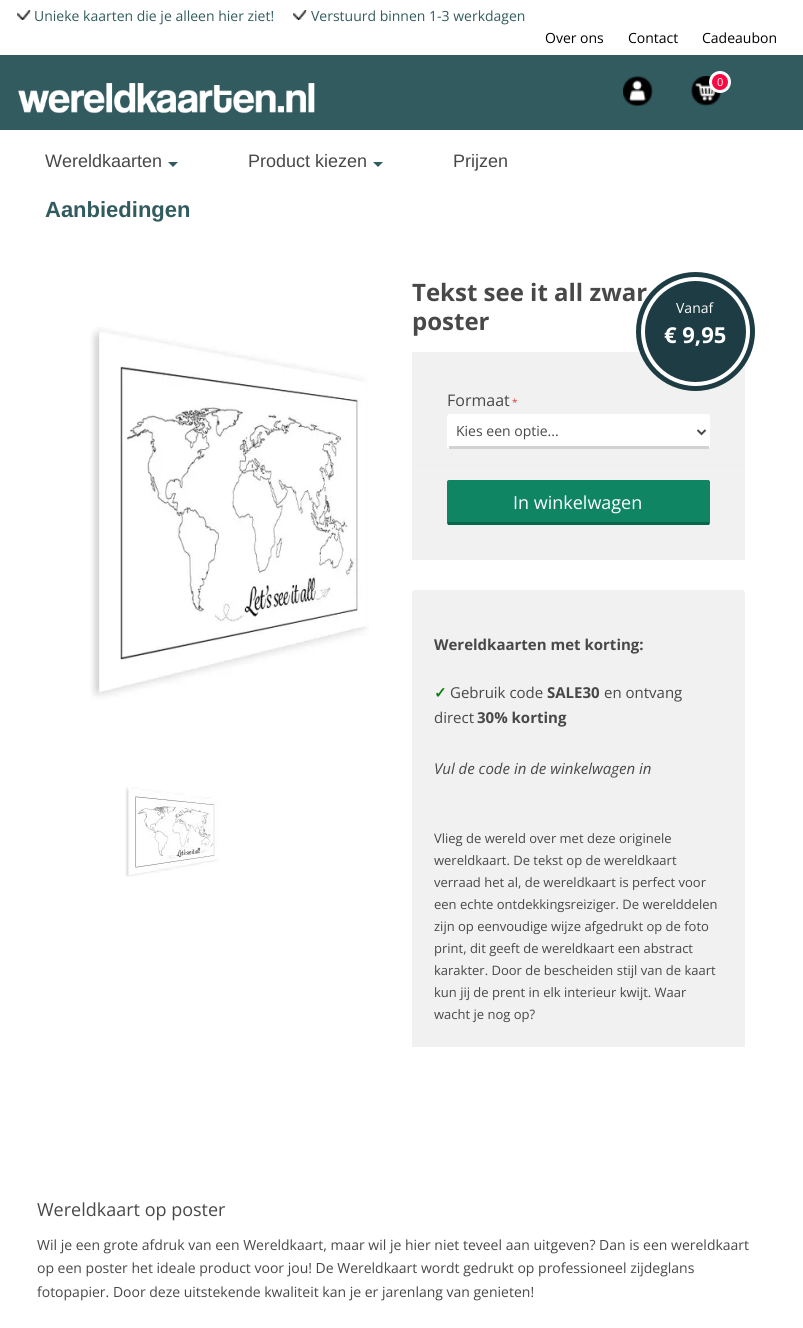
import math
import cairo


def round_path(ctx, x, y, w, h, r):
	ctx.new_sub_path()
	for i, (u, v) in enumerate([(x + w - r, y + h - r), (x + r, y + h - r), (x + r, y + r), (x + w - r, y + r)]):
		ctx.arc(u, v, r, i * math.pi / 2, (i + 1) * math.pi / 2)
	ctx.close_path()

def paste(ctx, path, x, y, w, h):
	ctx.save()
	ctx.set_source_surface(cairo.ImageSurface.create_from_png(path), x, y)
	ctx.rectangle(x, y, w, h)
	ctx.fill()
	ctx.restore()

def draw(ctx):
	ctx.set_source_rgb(1, 1, 1)
	ctx.paint()
	paste(ctx, 'media/1.png', 17, 10, 14, 10)
	ctx.select_font_face('Open Sans')
	ctx.set_font_size(14)
	ctx.set_source_rgb(0.196, 0.357, 0.373)
	ctx.move_to(34, 21)
	ctx.show_text('Unieke kaarten die je alleen hier ziet!')
	paste(ctx, 'media/1.png', 293, 10, 14, 10)
	ctx.move_to(311, 21)
	ctx.show_text('Verstuurd binnen 1-3 werkdagen')
	ctx.set_source_rgb(0, 0, 0)
	for x, y, s in [
		(545, 43, 'Over ons'),
		(628, 43, 'Contact'),
		(702, 43, 'Cadeaubon'),
	]:
		ctx.move_to(x, y)
		ctx.show_text(s)
	ctx.set_source_rgb(0.196, 0.357, 0.373)
	ctx.rectangle(0, 55, 803, 75)
	ctx.fill()
	paste(ctx, 'media/2.png', 18, 83, 297, 31)
	paste(ctx, 'media/3.png', 623, 76, 30, 30)
	paste(ctx, 'media/4.png', 691, 76, 30, 30)
	ctx.set_source_rgb(0.973, 0.039, 0.259)
	ctx.arc(720, 82, 9.5, 0, 2 * math.pi)
	ctx.fill_preserve()
	ctx.set_source_rgb(1, 1, 1)
	ctx.set_line_width(3)
	ctx.stroke()
	ctx.set_font_size(11)
	ctx.move_to(717, 86)
	ctx.show_text('0')
	ctx.select_font_face('Liberation Sans')
	ctx.set_font_size(18)
	ctx.set_source_rgb(0.282, 0.282, 0.282)
	ctx.move_to(45, 167)
	ctx.show_text('Wereldkaarten')
	ctx.set_source_rgb(0.196, 0.357, 0.373)
	ctx.new_path()
	ctx.move_to(168, 162)
	ctx.line_to(178, 162)
	ctx.line_to(173, 167)
	ctx.close_path()
	ctx.fill()
	ctx.set_source_rgb(0.282, 0.282, 0.282)
	ctx.move_to(248, 167)
	ctx.show_text('Product kiezen')
	ctx.set_source_rgb(0.196, 0.357, 0.373)
	ctx.new_path()
	ctx.move_to(373, 162)
	ctx.line_to(383, 162)
	ctx.line_to(378, 167)
	ctx.close_path()
	ctx.fill()
	ctx.set_source_rgb(0.282, 0.282, 0.282)
	ctx.move_to(453, 167)
	ctx.show_text('Prijzen')
	ctx.select_font_face('Liberation Sans', cairo.FONT_SLANT_NORMAL, cairo.FONT_WEIGHT_BOLD)
	ctx.set_font_size(22)
	ctx.set_source_rgb(0.196, 0.357, 0.373)
	ctx.move_to(45, 217)
	ctx.show_text('Aanbiedingen')
	paste(ctx, 'media/5.png', 90, 327, 279, 373)
	paste(ctx, 'media/6.png', 125, 787, 94, 90)
	ctx.select_font_face('Open Sans', cairo.FONT_SLANT_NORMAL, cairo.FONT_WEIGHT_BOLD)
	ctx.set_font_size(24)
	ctx.set_source_rgb(0.282, 0.282, 0.282)
	ctx.move_to(412, 301)
	ctx.show_text('Tekst see it all zwar')
	ctx.move_to(412, 330)
	ctx.show_text('poster')
	ctx.set_source_rgb(0.945, 0.945, 0.945)
	ctx.rectangle(412, 352, 333, 112)
	ctx.fill()
	ctx.set_source_rgb(1, 1, 1)
	ctx.arc(695.5, 331.5, 57, 0, 2 * math.pi)
	ctx.fill_preserve()
	ctx.set_source_rgb(0.114, 0.235, 0.263)
	ctx.set_line_width(5)
	ctx.stroke()
	ctx.arc(695.5, 331.5, 50.5, 0, 2 * math.pi)
	ctx.fill()
	ctx.select_font_face('Open Sans')
	ctx.set_font_size(14)
	ctx.set_source_rgb(1, 1, 1)
	ctx.move_to(676, 313)
	ctx.show_text('Vanaf')
	ctx.select_font_face('Open Sans', cairo.FONT_SLANT_NORMAL, cairo.FONT_WEIGHT_BOLD)
	ctx.set_font_size(22)
	ctx.move_to(664, 343)
	ctx.show_text('€ 9,95')
	ctx.set_source_rgb(0.937, 0.937, 0.937)
	ctx.rectangle(412, 464, 333, 1)
	ctx.fill()
	ctx.select_font_face('Open Sans')
	ctx.set_font_size(16)
	ctx.set_source_rgb(0.282, 0.282, 0.282)
	ctx.move_to(447, 406)
	ctx.show_text('Formaat')
	ctx.set_font_size(10)
	ctx.set_source_rgb(0.871, 0.216, 0.216)
	ctx.move_to(512, 406)
	ctx.show_text('*')
	ctx.set_source_rgb(1, 1, 1)
	round_path(ctx, 447, 414, 263, 35, 3)
	ctx.fill()
	ctx.set_source_rgb(0.824, 0.824, 0.824)
	ctx.rectangle(449, 446, 260, 3)
	ctx.fill()
	ctx.new_path()
	ctx.move_to(697.5, 430)
	ctx.line_to(701.5, 434)
	ctx.line_to(705.5, 430)
	ctx.set_source_rgb(0.282, 0.282, 0.282)
	ctx.set_line_width(2)
	ctx.stroke()
	ctx.set_font_size(14)
	ctx.move_to(456, 436)
	ctx.show_text('Kies een optie...')
	ctx.set_source_rgb(0.945, 0.945, 0.945)
	ctx.rectangle(412, 465, 333, 95)
	ctx.fill()
	ctx.set_source_rgb(0.059, 0.522, 0.392)
	round_path(ctx, 447, 480, 263, 45, 2)
	ctx.fill()
	ctx.set_source_rgb(0.031, 0.404, 0.302)
	ctx.rectangle(448, 522, 261, 3)
	ctx.fill()
	ctx.set_font_size(18)
	ctx.set_source_rgb(1, 1, 1)
	ctx.move_to(513, 509)
	ctx.show_text('In winkelwagen')
	ctx.set_source_rgb(0.945, 0.945, 0.945)
	ctx.new_path()
	ctx.move_to(415, 590)
	ctx.line_to(742, 590)
	ctx.curve_to(743.5, 590, 745, 591.5, 745, 593)
	ctx.line_to(745, 1049)
	ctx.line_to(412, 1049)
	ctx.line_to(412, 593)
	ctx.curve_to(412, 591.5, 413.5, 590, 415, 590)
	ctx.close_path()
	ctx.fill()
	ctx.set_source_rgb(1, 1, 1)
	ctx.rectangle(412, 1047, 333, 2)
	ctx.fill()
	ctx.select_font_face('Open Sans', cairo.FONT_SLANT_NORMAL, cairo.FONT_WEIGHT_BOLD)
	ctx.set_font_size(15)
	ctx.set_source_rgb(0.282, 0.282, 0.282)
	ctx.move_to(434, 650)
	ctx.show_text('Wereldkaarten met korting:')
	ctx.select_font_face('DejaVu Sans', cairo.FONT_SLANT_NORMAL, cairo.FONT_WEIGHT_BOLD)
	ctx.set_source_rgb(0, 0.502, 0)
	ctx.move_to(434, 698)
	ctx.show_text('✓')
	ctx.select_font_face('Open Sans')
	ctx.set_source_rgb(0.282, 0.282, 0.282)
	ctx.move_to(450, 698)
	ctx.show_text('Gebruik code')
	ctx.select_font_face('Open Sans', cairo.FONT_SLANT_NORMAL, cairo.FONT_WEIGHT_BOLD)
	ctx.move_to(547, 698)
	ctx.show_text('SALE30')
	ctx.select_font_face('Open Sans')
	ctx.move_to(604, 698)
	ctx.show_text('en ontvang')
	ctx.move_to(434, 723)
	ctx.show_text('direct')
	ctx.select_font_face('Open Sans', cairo.FONT_SLANT_NORMAL, cairo.FONT_WEIGHT_BOLD)
	ctx.move_to(477, 723)
	ctx.show_text('30% korting')
	ctx.select_font_face('Open Sans', cairo.FONT_SLANT_ITALIC)
	ctx.move_to(434, 774)
	ctx.show_text('Vul de code in de winkelwagen in')
	ctx.select_font_face('Open Sans')
	ctx.set_font_size(13)
	for x, y, s in [
		(434, 843, 'Vlieg de wereld over met deze originele'),
		(434, 865, 'wereldkaart. De tekst op de wereldkaart'),
		(434, 887, 'verraad het al, de wereldkaart is perfect voor'),
		(434, 909, 'een echte ontdekkingsreiziger. De werelddelen'),
		(434, 931, 'zijn op eenvoudige wijze afgedrukt op de foto'),
		(434, 953, 'print, dit geeft de wereldkaart een abstract'),
		(434, 975, 'karakter. Door de bescheiden stijl van de kaart'),
		(434, 997, 'kun jij de prent in elk interieur kwijt. Waar'),
		(434, 1019, 'wacht je nog op?'),
	]:
		ctx.move_to(x, y)
		ctx.show_text(s)
	ctx.set_font_size(18)
	ctx.move_to(37, 1216)
	ctx.show_text('Wereldkaart op poster')
	ctx.set_font_size(14)
	for x, y, s in [
		(37, 1250, 'Wil je een grote afdruk van een Wereldkaart, maar wil je hier niet teveel aan uitgeven? Dan is een wereldkaart'),
		(37, 1273, 'op een poster het ideale product voor jou! De Wereldkaart wordt gedrukt op professioneel zijdeglans'),
		(37, 1297, 'fotopapier. Door deze uitstekende kwaliteit kan je er jarenlang van genieten!'),
	]:
		ctx.move_to(x, y)
		ctx.show_text(s)


surface = cairo.ImageSurface(cairo.FORMAT_RGB24, 803, 1328)
ctx = cairo.Context(surface)
options = cairo.FontOptions()
options.set_hint_metrics(cairo.HINT_METRICS_OFF)
options.set_hint_style(cairo.HINT_STYLE_NONE)
ctx.set_font_options(options)
ctx.set_miter_limit(4)
draw(ctx)
surface.write_to_png('image.png')
